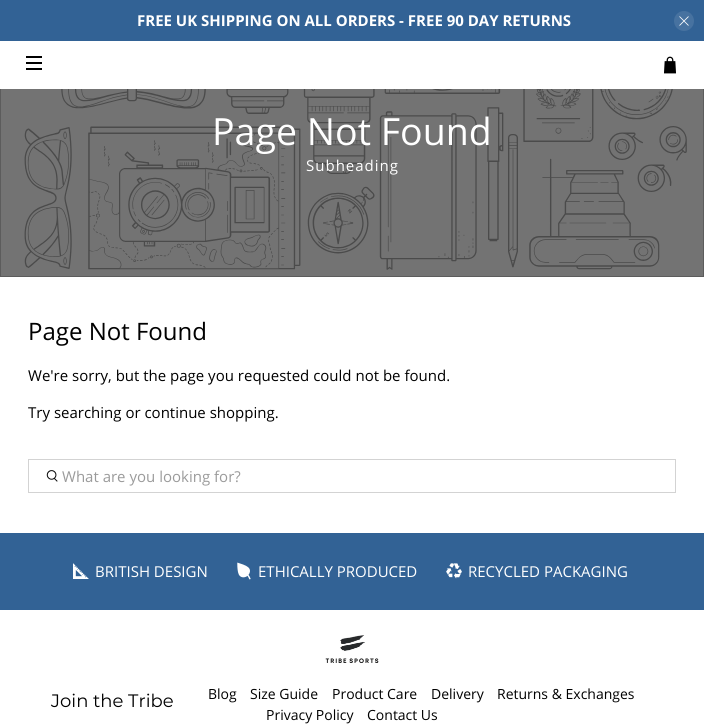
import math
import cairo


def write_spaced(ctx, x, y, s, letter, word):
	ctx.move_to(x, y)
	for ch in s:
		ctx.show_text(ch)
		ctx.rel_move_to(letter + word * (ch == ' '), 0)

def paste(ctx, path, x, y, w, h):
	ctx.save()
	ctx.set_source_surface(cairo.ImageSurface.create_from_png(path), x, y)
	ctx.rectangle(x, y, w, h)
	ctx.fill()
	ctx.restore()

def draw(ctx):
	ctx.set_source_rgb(1, 1, 1)
	ctx.paint()
	ctx.set_source_rgb(0.451, 0.451, 0.451)
	ctx.rectangle(1, 89, 702, 187)
	ctx.fill()
	ctx.rectangle(0.5, 8.5, 703, 268)
	ctx.set_source_rgb(0.361, 0.361, 0.361)
	ctx.set_line_width(1)
	ctx.stroke()
	ctx.set_source_rgb(0.196, 0.384, 0.584)
	ctx.rectangle(0, 0, 704, 41)
	ctx.fill()
	ctx.select_font_face('Open Sans', cairo.FONT_SLANT_NORMAL, cairo.FONT_WEIGHT_BOLD)
	ctx.set_font_size(15)
	ctx.set_source_rgb(1, 1, 1)
	ctx.move_to(137, 26)
	ctx.show_text('FREE UK SHIPPING ON ALL ORDERS - FREE 90 DAY RETURNS')
	ctx.set_source_rgb(0.278, 0.447, 0.627)
	ctx.new_path()
	ctx.arc(684, 21, 10, 0, 2 * math.pi)
	ctx.fill()
	paste(ctx, 'media/1.png', 679, 16, 10, 10)
	ctx.set_source_rgb(1, 1, 1)
	ctx.rectangle(0, 41, 704, 48)
	ctx.fill()
	ctx.set_source_rgb(0, 0, 0)
	ctx.rectangle(26, 56, 16, 2)
	ctx.rectangle(26, 62, 16, 2)
	ctx.rectangle(26, 68, 16, 2)
	ctx.fill()
	paste(ctx, 'media/2.png', 664, 56, 12, 18)
	paste(ctx, 'media/3.png', 24, 89, 663, 181)
	ctx.select_font_face('Open Sans')
	ctx.set_font_size(37.5)
	ctx.set_source_rgb(1, 1, 1)
	ctx.move_to(212, 145)
	ctx.show_text('Page Not Found')
	ctx.set_font_size(15)
	write_spaced(ctx, 306, 171, 'Subheading', 1, 0)
	ctx.set_font_size(24)
	ctx.set_source_rgb(0, 0, 0)
	ctx.move_to(28, 340)
	ctx.show_text('Page Not Found')
	ctx.set_font_size(15)
	ctx.move_to(28, 381)
	ctx.show_text('We\'re sorry, but the page you requested could not be found.')
	ctx.move_to(28, 418)
	ctx.show_text('Try searching or continue shopping.')
	ctx.rectangle(28.5, 459.5, 647, 33)
	ctx.set_source_rgb(0.827, 0.827, 0.827)
	ctx.stroke()
	paste(ctx, 'media/4.png', 46, 470, 12, 12)
	ctx.set_source_rgb(0.608, 0.608, 0.608)
	ctx.move_to(62, 482)
	ctx.show_text('What are you looking for?')
	ctx.set_source_rgb(0.196, 0.384, 0.584)
	ctx.rectangle(0, 533, 704, 77)
	ctx.fill()
	paste(ctx, 'media/5.png', 73, 563, 16, 16)
	ctx.set_source_rgb(1, 1, 1)
	ctx.move_to(95, 577)
	ctx.show_text('BRITISH DESIGN')
	paste(ctx, 'media/6.png', 237, 562, 14, 18)
	ctx.move_to(258, 577)
	ctx.show_text('ETHICALLY PRODUCED')
	paste(ctx, 'media/7.png', 446, 563, 16, 16)
	ctx.move_to(468, 577)
	ctx.show_text('RECYCLED PACKAGING')
	ctx.select_font_face('Montserrat Thin')
	ctx.set_font_size(18)
	ctx.set_source_rgb(0, 0, 0)
	ctx.move_to(51, 707)
	ctx.show_text('Join the Tribe')
	paste(ctx, 'media/8.png', 325, 635, 54, 28)
	ctx.select_font_face('Open Sans')
	ctx.set_font_size(14)
	for x, y, s in [
		(208, 699, 'Blog'),
		(250, 699, 'Size Guide'),
		(332, 699, 'Product Care'),
		(431, 699, 'Delivery'),
		(497, 699, 'Returns & Exchanges'),
		(266, 720, 'Privacy Policy'),
		(367, 720, 'Contact Us'),
	]:
		ctx.move_to(x, y)
		ctx.show_text(s)


surface = cairo.ImageSurface(cairo.FORMAT_RGB24, 704, 726)
ctx = cairo.Context(surface)
options = cairo.FontOptions()
options.set_hint_metrics(cairo.HINT_METRICS_OFF)
options.set_hint_style(cairo.HINT_STYLE_NONE)
ctx.set_font_options(options)
ctx.set_miter_limit(4)
draw(ctx)
surface.write_to_png('image.png')
